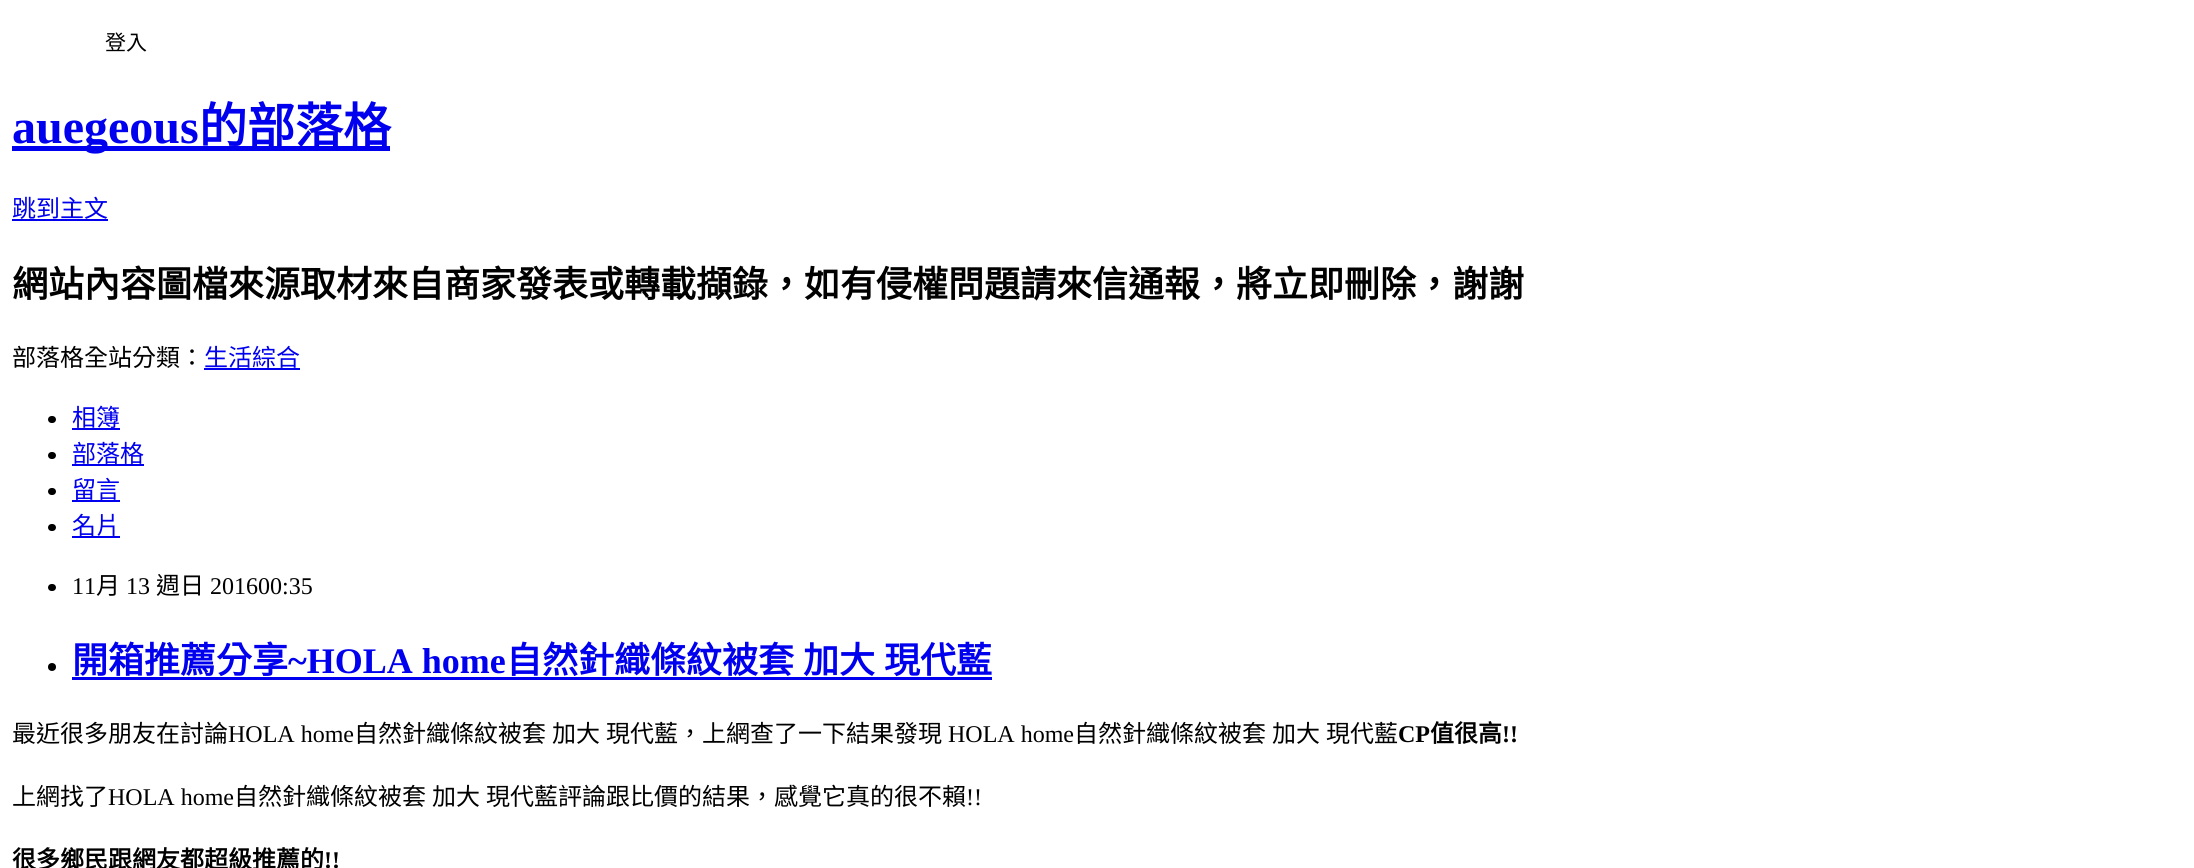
import math
import cairo


def round_path(ctx, x, y, w, h, r):
	ctx.new_sub_path()
	for i, (u, v) in enumerate([(x + w - r, y + h - r), (x + r, y + h - r), (x + r, y + r), (x + w - r, y + r)]):
		ctx.arc(u, v, r, i * math.pi / 2, (i + 1) * math.pi / 2)
	ctx.close_path()

def draw(ctx):
	ctx.set_source_rgb(1, 1, 1)
	ctx.paint()
	ctx.select_font_face('Noto Sans CJK TC')
	ctx.set_font_size(21)
	ctx.set_source_rgb(0, 0, 0)
	ctx.move_to(105, 50)
	ctx.show_text('登入')
	ctx.set_source_rgb(0, 0, 0.933)
	ctx.rectangle(12, 146, 378, 5)
	ctx.fill()
	ctx.select_font_face('Liberation Serif', cairo.FONT_SLANT_NORMAL, cairo.FONT_WEIGHT_BOLD)
	ctx.set_font_size(48)
	ctx.move_to(12, 143)
	ctx.show_text('auegeous')
	ctx.select_font_face('Noto Sans CJK TC', cairo.FONT_SLANT_NORMAL, cairo.FONT_WEIGHT_BOLD)
	ctx.move_to(199, 143)
	ctx.show_text('的部落格')
	ctx.select_font_face('Noto Sans CJK TC')
	ctx.set_font_size(24)
	ctx.move_to(12, 217)
	ctx.show_text('跳到主文')
	ctx.rectangle(12, 219, 96, 2)
	ctx.fill()
	ctx.select_font_face('Noto Sans CJK TC', cairo.FONT_SLANT_NORMAL, cairo.FONT_WEIGHT_BOLD)
	ctx.set_font_size(36)
	ctx.set_source_rgb(0, 0, 0)
	ctx.move_to(12, 297)
	ctx.show_text('網站內容圖檔來源取材來自商家發表或轉載擷錄，如有侵權問題請來信通報，將立即刪除，謝謝')
	ctx.select_font_face('Noto Sans CJK TC')
	ctx.set_font_size(24)
	ctx.move_to(12, 366)
	ctx.show_text('部落格全站分類：')
	ctx.set_source_rgb(0, 0, 0.933)
	ctx.move_to(204, 366)
	ctx.show_text('生活綜合')
	ctx.rectangle(204, 368, 96, 2)
	ctx.fill()
	ctx.set_source_rgb(0, 0, 0)
	round_path(ctx, 48, 416, 8, 7, 3.5)
	ctx.fill()
	ctx.set_source_rgb(0, 0, 0.933)
	ctx.move_to(72, 426)
	ctx.show_text('相簿')
	ctx.rectangle(72, 428, 48, 2)
	ctx.fill()
	ctx.set_source_rgb(0, 0, 0)
	round_path(ctx, 48, 452, 8, 7, 3.5)
	ctx.fill()
	ctx.set_source_rgb(0, 0, 0.933)
	ctx.move_to(72, 462)
	ctx.show_text('部落格')
	ctx.rectangle(72, 464, 72, 2)
	ctx.fill()
	ctx.set_source_rgb(0, 0, 0)
	round_path(ctx, 48, 488, 8, 7, 3.5)
	ctx.fill()
	ctx.set_source_rgb(0, 0, 0.933)
	ctx.move_to(72, 498)
	ctx.show_text('留言')
	ctx.rectangle(72, 500, 48, 2)
	ctx.fill()
	ctx.set_source_rgb(0, 0, 0)
	round_path(ctx, 48, 524, 8, 7, 3.5)
	ctx.fill()
	ctx.set_source_rgb(0, 0, 0.933)
	ctx.move_to(72, 534)
	ctx.show_text('名片')
	ctx.rectangle(72, 536, 48, 2)
	ctx.fill()
	ctx.set_source_rgb(0, 0, 0)
	round_path(ctx, 48, 584, 8, 7, 3.5)
	ctx.fill()
	ctx.select_font_face('Liberation Serif')
	ctx.move_to(72, 594)
	ctx.show_text('11')
	ctx.select_font_face('Noto Sans CJK TC')
	ctx.move_to(96, 594)
	ctx.show_text('月')
	ctx.select_font_face('Liberation Serif')
	ctx.move_to(126, 594)
	ctx.show_text('13')
	ctx.select_font_face('Noto Sans CJK TC')
	ctx.move_to(156, 594)
	ctx.show_text('週日')
	ctx.select_font_face('Liberation Serif')
	ctx.move_to(210, 594)
	ctx.show_text('201600:35')
	ctx.new_path()
	ctx.arc(52, 667, 4, 0, 2 * math.pi)
	ctx.fill()
	ctx.select_font_face('Noto Sans CJK TC', cairo.FONT_SLANT_NORMAL, cairo.FONT_WEIGHT_BOLD)
	ctx.set_font_size(36)
	ctx.set_source_rgb(0, 0, 0.933)
	ctx.move_to(72, 673)
	ctx.show_text('開箱推薦分享')
	ctx.select_font_face('Liberation Serif', cairo.FONT_SLANT_NORMAL, cairo.FONT_WEIGHT_BOLD)
	ctx.move_to(288, 673)
	ctx.show_text('~HOLA home')
	ctx.rectangle(72, 677, 920, 3)
	ctx.fill()
	ctx.select_font_face('Noto Sans CJK TC', cairo.FONT_SLANT_NORMAL, cairo.FONT_WEIGHT_BOLD)
	for x, y, s in [
		(506, 673, '自然針織條紋被套'),
		(803, 673, '加大'),
		(884, 673, '現代藍'),
	]:
		ctx.move_to(x, y)
		ctx.show_text(s)
	ctx.select_font_face('Noto Sans CJK TC')
	ctx.set_font_size(24)
	ctx.set_source_rgb(0, 0, 0)
	ctx.move_to(12, 742)
	ctx.show_text('最近很多朋友在討論')
	ctx.select_font_face('Liberation Serif')
	ctx.move_to(228, 742)
	ctx.show_text('HOLA home')
	ctx.select_font_face('Noto Sans CJK TC')
	for x, y, s in [
		(354, 742, '自然針織條紋被套'),
		(552, 742, '加大'),
		(606, 742, '現代藍，上網查了一下結果發現'),
	]:
		ctx.move_to(x, y)
		ctx.show_text(s)
	ctx.select_font_face('Liberation Serif')
	ctx.move_to(948, 742)
	ctx.show_text('HOLA home')
	ctx.select_font_face('Noto Sans CJK TC')
	for x, y, s in [
		(1074, 742, '自然針織條紋被套'),
		(1272, 742, '加大'),
		(1326, 742, '現代藍'),
	]:
		ctx.move_to(x, y)
		ctx.show_text(s)
	ctx.select_font_face('Liberation Serif', cairo.FONT_SLANT_NORMAL, cairo.FONT_WEIGHT_BOLD)
	ctx.move_to(1398, 742)
	ctx.show_text('CP')
	ctx.select_font_face('Noto Sans CJK TC', cairo.FONT_SLANT_NORMAL, cairo.FONT_WEIGHT_BOLD)
	ctx.move_to(1430, 742)
	ctx.show_text('值很高')
	ctx.select_font_face('Liberation Serif', cairo.FONT_SLANT_NORMAL, cairo.FONT_WEIGHT_BOLD)
	ctx.move_to(1502, 742)
	ctx.show_text('!!')
	ctx.select_font_face('Noto Sans CJK TC')
	ctx.move_to(12, 805)
	ctx.show_text('上網找了')
	ctx.select_font_face('Liberation Serif')
	ctx.move_to(108, 805)
	ctx.show_text('HOLA home')
	ctx.select_font_face('Noto Sans CJK TC')
	for x, y, s in [
		(234, 805, '自然針織條紋被套'),
		(432, 805, '加大'),
		(486, 805, '現代藍評論跟比價的結果，感覺它真的很不賴'),
	]:
		ctx.move_to(x, y)
		ctx.show_text(s)
	ctx.select_font_face('Liberation Serif')
	ctx.move_to(966, 805)
	ctx.show_text('!!')
	ctx.select_font_face('Noto Sans CJK TC', cairo.FONT_SLANT_NORMAL, cairo.FONT_WEIGHT_BOLD)
	ctx.move_to(12, 868)
	ctx.show_text('很多鄉民跟網友都超級推薦的')
	ctx.select_font_face('Liberation Serif', cairo.FONT_SLANT_NORMAL, cairo.FONT_WEIGHT_BOLD)
	ctx.move_to(324, 868)
	ctx.show_text('!!')


surface = cairo.ImageSurface(cairo.FORMAT_RGB24, 2194, 868)
ctx = cairo.Context(surface)
options = cairo.FontOptions()
options.set_hint_metrics(cairo.HINT_METRICS_OFF)
options.set_hint_style(cairo.HINT_STYLE_NONE)
ctx.set_font_options(options)
ctx.set_miter_limit(4)
draw(ctx)
surface.write_to_png('image.png')
